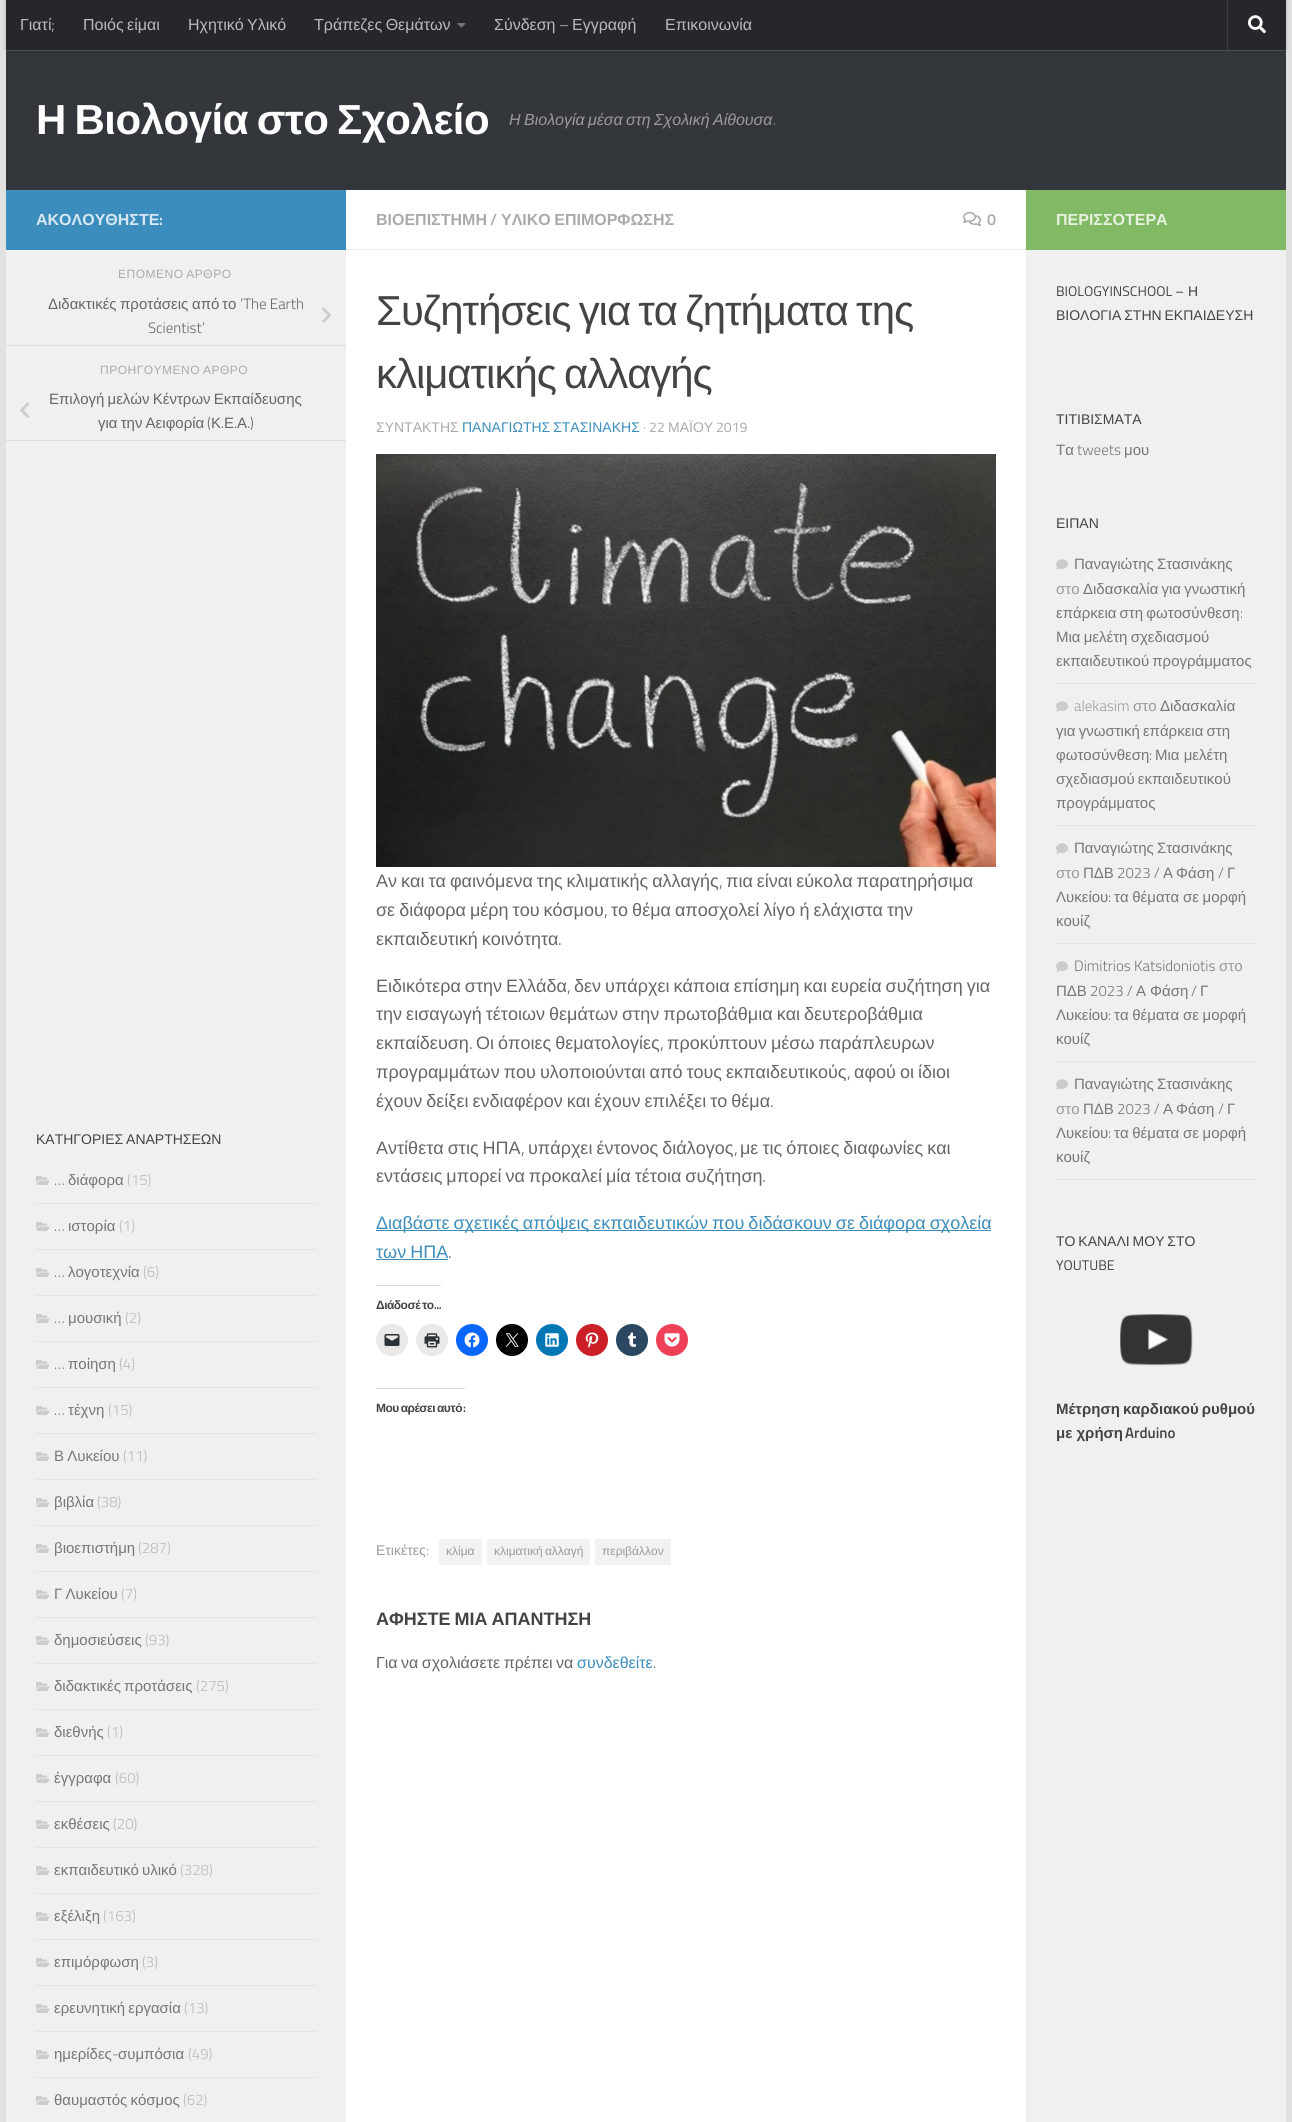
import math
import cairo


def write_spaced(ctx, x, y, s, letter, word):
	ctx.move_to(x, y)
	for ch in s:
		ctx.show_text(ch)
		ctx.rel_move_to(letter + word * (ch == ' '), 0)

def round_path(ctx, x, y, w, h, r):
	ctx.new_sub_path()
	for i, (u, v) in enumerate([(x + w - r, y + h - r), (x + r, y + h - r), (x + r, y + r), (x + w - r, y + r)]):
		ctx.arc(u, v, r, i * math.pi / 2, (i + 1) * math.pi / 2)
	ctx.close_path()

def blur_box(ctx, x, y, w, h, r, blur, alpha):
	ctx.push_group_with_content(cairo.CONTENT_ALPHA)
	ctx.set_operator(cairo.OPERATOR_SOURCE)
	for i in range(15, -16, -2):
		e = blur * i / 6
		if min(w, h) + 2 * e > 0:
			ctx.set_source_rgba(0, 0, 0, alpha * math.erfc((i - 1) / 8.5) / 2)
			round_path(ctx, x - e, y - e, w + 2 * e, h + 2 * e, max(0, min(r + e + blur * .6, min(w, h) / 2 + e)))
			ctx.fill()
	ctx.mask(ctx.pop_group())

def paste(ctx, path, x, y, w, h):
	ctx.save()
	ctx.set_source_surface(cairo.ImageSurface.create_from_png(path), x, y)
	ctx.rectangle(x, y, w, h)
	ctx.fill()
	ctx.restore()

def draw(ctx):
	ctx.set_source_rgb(0.882, 0.882, 0.882)
	ctx.paint()
	ctx.set_source_rgb(0.2, 0.212, 0.231)
	ctx.rectangle(6, 51, 1280, 139)
	ctx.fill()
	ctx.set_source_rgb(0.322, 0.329, 0.345)
	ctx.rectangle(6, 50, 1280, 1)
	ctx.fill()
	ctx.set_source_rgb(0, 0, 0)
	blur_box(ctx, 6, 0, 1280, 50, 0, 2.5, 0.2)
	ctx.set_source_rgb(0.149, 0.153, 0.169)
	ctx.rectangle(6, 0, 1280, 50)
	ctx.fill()
	ctx.select_font_face('Liberation Sans')
	ctx.set_font_size(16)
	ctx.set_source_rgb(0.733, 0.733, 0.733)
	ctx.move_to(20, 30)
	ctx.show_text('Γιατί')
	ctx.select_font_face('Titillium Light')
	ctx.move_to(51, 30)
	ctx.show_text(';')
	ctx.select_font_face('Liberation Sans')
	for x, y, s in [
		(83, 30, 'Ποιός είμαι'),
		(188, 30, 'Ηχητικό Υλικό'),
		(314, 30, 'Τράπεζες Θεμάτων'),
	]:
		write_spaced(ctx, x, y, s, 0, -1)
	paste(ctx, 'media/1.png', 457, 23, 9, 5)
	ctx.move_to(494, 30)
	ctx.show_text('Σύνδεση')
	ctx.select_font_face('Titillium Light')
	ctx.move_to(559, 30)
	ctx.show_text('–')
	ctx.select_font_face('Liberation Sans')
	ctx.move_to(572, 30)
	ctx.show_text('Εγγραφή')
	ctx.move_to(665, 30)
	ctx.show_text('Επικοινωνία')
	ctx.set_source_rgb(0.235, 0.239, 0.251)
	ctx.rectangle(1227, 0, 1, 50)
	ctx.fill()
	paste(ctx, 'media/2.png', 1248, 15, 18, 19)
	ctx.select_font_face('Liberation Sans', cairo.FONT_SLANT_NORMAL, cairo.FONT_WEIGHT_BOLD)
	ctx.set_font_size(42)
	ctx.set_source_rgb(1, 1, 1)
	write_spaced(ctx, 36, 134, 'Η Βιολογία στο Σχολείο', -0.5, -2.5)
	ctx.select_font_face('Liberation Sans', cairo.FONT_SLANT_ITALIC)
	ctx.set_font_size(16)
	ctx.set_source_rgb(0.6, 0.608, 0.616)
	write_spaced(ctx, 509, 125, 'Η Βιολογία μέσα στη Σχολική Αίθουσα', 0, -1)
	ctx.select_font_face('Titillium Light', cairo.FONT_SLANT_ITALIC)
	ctx.move_to(773, 125)
	ctx.show_text('.')
	ctx.set_source_rgb(1, 1, 1)
	ctx.rectangle(346, 190, 680, 1932)
	ctx.fill()
	ctx.set_source_rgb(0.231, 0.553, 0.741)
	ctx.rectangle(6, 190, 340, 60)
	ctx.fill()
	ctx.select_font_face('Liberation Sans', cairo.FONT_SLANT_NORMAL, cairo.FONT_WEIGHT_BOLD)
	ctx.set_source_rgb(0.847, 0.91, 0.949)
	ctx.move_to(36, 225)
	ctx.show_text('ΑΚΟΛΟΥΘΗΣΤΕ')
	ctx.select_font_face('Titillium SemiBold')
	ctx.move_to(159, 225)
	ctx.show_text(':')
	ctx.set_source_rgb(0.941, 0.941, 0.941)
	ctx.rectangle(6, 250, 340, 1872)
	ctx.fill()
	ctx.select_font_face('Liberation Sans')
	ctx.set_font_size(12)
	ctx.set_source_rgb(0.667, 0.667, 0.667)
	write_spaced(ctx, 118, 278, 'ΕΠΟΜΕΝΟ ΑΡΘΡΟ', 0.5, -1)
	ctx.set_source_rgb(0.867, 0.867, 0.867)
	ctx.rectangle(6, 345, 340, 1)
	ctx.fill()
	ctx.set_font_size(15)
	ctx.set_source_rgb(0.4, 0.4, 0.4)
	for x, y, s in [
		(48, 309, 'Διδακτικές'),
		(120, 309, 'προτάσεις'),
		(192, 309, 'από'),
		(222, 309, 'το'),
	]:
		ctx.move_to(x, y)
		ctx.show_text(s)
	ctx.select_font_face('Titillium Light')
	ctx.move_to(240, 309)
	ctx.show_text('‘The Earth')
	paste(ctx, 'media/3.png', 322, 307, 10, 16)
	ctx.move_to(148, 333)
	ctx.show_text('Scientist’')
	ctx.select_font_face('Liberation Sans')
	ctx.set_font_size(12)
	ctx.set_source_rgb(0.667, 0.667, 0.667)
	write_spaced(ctx, 100, 374, 'ΠΡΟΗΓΟΥΜΕΝΟ ΑΡΘΡΟ', 0.5, -1)
	ctx.set_source_rgb(0.867, 0.867, 0.867)
	ctx.rectangle(6, 440, 340, 1)
	ctx.fill()
	ctx.set_font_size(15)
	ctx.set_source_rgb(0.4, 0.4, 0.4)
	write_spaced(ctx, 49, 404, 'Επιλογή μελών Κέντρων Εκπαίδευσης', 0, -1)
	paste(ctx, 'media/4.png', 20, 402, 10, 16)
	write_spaced(ctx, 98, 428, 'για την Αειφορία', 0, -1)
	ctx.select_font_face('Titillium Light')
	ctx.move_to(207, 428)
	ctx.show_text('(')
	ctx.select_font_face('Liberation Sans')
	ctx.move_to(211, 428)
	ctx.show_text('Κ')
	ctx.select_font_face('Titillium Light')
	ctx.move_to(221, 428)
	ctx.show_text('.')
	ctx.select_font_face('Liberation Sans')
	ctx.move_to(224, 428)
	ctx.show_text('Ε')
	ctx.select_font_face('Titillium Light')
	ctx.move_to(234, 428)
	ctx.show_text('.')
	ctx.select_font_face('Liberation Sans')
	ctx.move_to(237, 428)
	ctx.show_text('Α')
	ctx.select_font_face('Titillium Light')
	ctx.move_to(247, 428)
	ctx.show_text('.)')
	ctx.select_font_face('Liberation Sans')
	ctx.set_font_size(14)
	ctx.set_source_rgb(0.267, 0.267, 0.267)
	write_spaced(ctx, 36, 1144, 'ΚΑΤΗΓΟΡΙΕΣ ΑΝΑΡΤΗΣΕΩΝ', 0, -1)
	ctx.set_source_rgb(0.894, 0.894, 0.894)
	ctx.rectangle(36, 1203, 280, 1)
	ctx.fill()
	paste(ctx, 'media/5.png', 36, 1176, 14, 9)
	ctx.select_font_face('Titillium Light')
	ctx.set_font_size(15)
	ctx.set_source_rgb(0.467, 0.467, 0.467)
	ctx.move_to(54, 1185)
	ctx.show_text('…')
	ctx.select_font_face('Liberation Sans')
	ctx.move_to(68, 1185)
	ctx.show_text('διάφορα')
	ctx.select_font_face('Titillium Light')
	ctx.set_source_rgb(0.733, 0.733, 0.733)
	ctx.move_to(127, 1185)
	ctx.show_text('(15)')
	ctx.set_source_rgb(0.894, 0.894, 0.894)
	ctx.rectangle(36, 1249, 280, 1)
	ctx.fill()
	paste(ctx, 'media/5.png', 36, 1222, 14, 9)
	ctx.set_source_rgb(0.467, 0.467, 0.467)
	ctx.move_to(54, 1231)
	ctx.show_text('…')
	ctx.select_font_face('Liberation Sans')
	ctx.move_to(68, 1231)
	ctx.show_text('ιστορία')
	ctx.select_font_face('Titillium Light')
	ctx.set_source_rgb(0.733, 0.733, 0.733)
	ctx.move_to(119, 1231)
	ctx.show_text('(1)')
	ctx.set_source_rgb(0.894, 0.894, 0.894)
	ctx.rectangle(36, 1295, 280, 1)
	ctx.fill()
	paste(ctx, 'media/5.png', 36, 1268, 14, 9)
	ctx.set_source_rgb(0.467, 0.467, 0.467)
	ctx.move_to(54, 1277)
	ctx.show_text('…')
	ctx.select_font_face('Liberation Sans')
	ctx.move_to(68, 1277)
	ctx.show_text('λογοτεχνία')
	ctx.select_font_face('Titillium Light')
	ctx.set_source_rgb(0.733, 0.733, 0.733)
	ctx.move_to(143, 1277)
	ctx.show_text('(6)')
	ctx.set_source_rgb(0.894, 0.894, 0.894)
	ctx.rectangle(36, 1341, 280, 1)
	ctx.fill()
	paste(ctx, 'media/5.png', 36, 1314, 14, 9)
	ctx.set_source_rgb(0.467, 0.467, 0.467)
	ctx.move_to(54, 1323)
	ctx.show_text('…')
	ctx.select_font_face('Liberation Sans')
	ctx.move_to(68, 1323)
	ctx.show_text('μουσική')
	ctx.select_font_face('Titillium Light')
	ctx.set_source_rgb(0.733, 0.733, 0.733)
	ctx.move_to(125, 1323)
	ctx.show_text('(2)')
	ctx.set_source_rgb(0.894, 0.894, 0.894)
	ctx.rectangle(36, 1387, 280, 1)
	ctx.fill()
	paste(ctx, 'media/5.png', 36, 1360, 14, 9)
	ctx.set_source_rgb(0.467, 0.467, 0.467)
	ctx.move_to(54, 1369)
	ctx.show_text('…')
	ctx.select_font_face('Liberation Sans')
	ctx.move_to(68, 1369)
	ctx.show_text('ποίηση')
	ctx.select_font_face('Titillium Light')
	ctx.set_source_rgb(0.733, 0.733, 0.733)
	ctx.move_to(119, 1369)
	ctx.show_text('(4)')
	ctx.set_source_rgb(0.894, 0.894, 0.894)
	ctx.rectangle(36, 1433, 280, 1)
	ctx.fill()
	paste(ctx, 'media/5.png', 36, 1406, 14, 9)
	ctx.set_source_rgb(0.467, 0.467, 0.467)
	ctx.move_to(54, 1415)
	ctx.show_text('…')
	ctx.select_font_face('Liberation Sans')
	ctx.move_to(68, 1415)
	ctx.show_text('τέχνη')
	ctx.select_font_face('Titillium Light')
	ctx.set_source_rgb(0.733, 0.733, 0.733)
	ctx.move_to(108, 1415)
	ctx.show_text('(15)')
	ctx.set_source_rgb(0.894, 0.894, 0.894)
	ctx.rectangle(36, 1479, 280, 1)
	ctx.fill()
	paste(ctx, 'media/5.png', 36, 1452, 14, 9)
	ctx.select_font_face('Liberation Sans')
	ctx.set_source_rgb(0.467, 0.467, 0.467)
	write_spaced(ctx, 54, 1461, 'Β Λυκείου', 0, -1)
	ctx.select_font_face('Titillium Light')
	ctx.set_source_rgb(0.733, 0.733, 0.733)
	ctx.move_to(123, 1461)
	ctx.show_text('(11)')
	ctx.set_source_rgb(0.894, 0.894, 0.894)
	ctx.rectangle(36, 1525, 280, 1)
	ctx.fill()
	paste(ctx, 'media/5.png', 36, 1498, 14, 9)
	ctx.select_font_face('Liberation Sans')
	ctx.set_source_rgb(0.467, 0.467, 0.467)
	ctx.move_to(54, 1507)
	ctx.show_text('βιβλία')
	ctx.select_font_face('Titillium Light')
	ctx.set_source_rgb(0.733, 0.733, 0.733)
	ctx.move_to(97, 1507)
	ctx.show_text('(38)')
	ctx.set_source_rgb(0.894, 0.894, 0.894)
	ctx.rectangle(36, 1571, 280, 1)
	ctx.fill()
	paste(ctx, 'media/5.png', 36, 1544, 14, 9)
	ctx.select_font_face('Liberation Sans')
	ctx.set_source_rgb(0.467, 0.467, 0.467)
	ctx.move_to(54, 1553)
	ctx.show_text('βιοεπιστήμη')
	ctx.select_font_face('Titillium Light')
	ctx.set_source_rgb(0.733, 0.733, 0.733)
	ctx.move_to(138, 1553)
	ctx.show_text('(287)')
	ctx.set_source_rgb(0.894, 0.894, 0.894)
	ctx.rectangle(36, 1617, 280, 1)
	ctx.fill()
	paste(ctx, 'media/5.png', 36, 1590, 14, 9)
	ctx.select_font_face('Liberation Sans')
	ctx.set_source_rgb(0.467, 0.467, 0.467)
	write_spaced(ctx, 54, 1599, 'Γ Λυκείου', 0, -1)
	ctx.select_font_face('Titillium Light')
	ctx.set_source_rgb(0.733, 0.733, 0.733)
	ctx.move_to(121, 1599)
	ctx.show_text('(7)')
	ctx.set_source_rgb(0.894, 0.894, 0.894)
	ctx.rectangle(36, 1663, 280, 1)
	ctx.fill()
	paste(ctx, 'media/5.png', 36, 1636, 14, 9)
	ctx.select_font_face('Liberation Sans')
	ctx.set_source_rgb(0.467, 0.467, 0.467)
	ctx.move_to(54, 1645)
	ctx.show_text('δημοσιεύσεις')
	ctx.select_font_face('Titillium Light')
	ctx.set_source_rgb(0.733, 0.733, 0.733)
	ctx.move_to(145, 1645)
	ctx.show_text('(93)')
	ctx.set_source_rgb(0.894, 0.894, 0.894)
	ctx.rectangle(36, 1709, 280, 1)
	ctx.fill()
	paste(ctx, 'media/5.png', 36, 1682, 14, 9)
	ctx.select_font_face('Liberation Sans')
	ctx.set_source_rgb(0.467, 0.467, 0.467)
	write_spaced(ctx, 54, 1691, 'διδακτικές προτάσεις', 0, -1)
	ctx.select_font_face('Titillium Light')
	ctx.set_source_rgb(0.733, 0.733, 0.733)
	ctx.move_to(196, 1691)
	ctx.show_text('(275)')
	ctx.set_source_rgb(0.894, 0.894, 0.894)
	ctx.rectangle(36, 1755, 280, 1)
	ctx.fill()
	paste(ctx, 'media/5.png', 36, 1728, 14, 9)
	ctx.select_font_face('Liberation Sans')
	ctx.set_source_rgb(0.467, 0.467, 0.467)
	ctx.move_to(54, 1737)
	ctx.show_text('διεθνής')
	ctx.select_font_face('Titillium Light')
	ctx.set_source_rgb(0.733, 0.733, 0.733)
	ctx.move_to(107, 1737)
	ctx.show_text('(1)')
	ctx.set_source_rgb(0.894, 0.894, 0.894)
	ctx.rectangle(36, 1801, 280, 1)
	ctx.fill()
	paste(ctx, 'media/5.png', 36, 1774, 14, 9)
	ctx.select_font_face('Liberation Sans')
	ctx.set_source_rgb(0.467, 0.467, 0.467)
	ctx.move_to(54, 1783)
	ctx.show_text('έγγραφα')
	ctx.select_font_face('Titillium Light')
	ctx.set_source_rgb(0.733, 0.733, 0.733)
	ctx.move_to(115, 1783)
	ctx.show_text('(60)')
	ctx.set_source_rgb(0.894, 0.894, 0.894)
	ctx.rectangle(36, 1847, 280, 1)
	ctx.fill()
	paste(ctx, 'media/5.png', 36, 1820, 14, 9)
	ctx.select_font_face('Liberation Sans')
	ctx.set_source_rgb(0.467, 0.467, 0.467)
	ctx.move_to(54, 1829)
	ctx.show_text('εκθέσεις')
	ctx.select_font_face('Titillium Light')
	ctx.set_source_rgb(0.733, 0.733, 0.733)
	ctx.move_to(113, 1829)
	ctx.show_text('(20)')
	ctx.set_source_rgb(0.894, 0.894, 0.894)
	ctx.rectangle(36, 1893, 280, 1)
	ctx.fill()
	paste(ctx, 'media/5.png', 36, 1866, 14, 9)
	ctx.select_font_face('Liberation Sans')
	ctx.set_source_rgb(0.467, 0.467, 0.467)
	write_spaced(ctx, 54, 1875, 'εκπαιδευτικό υλικό', 0, -1)
	ctx.select_font_face('Titillium Light')
	ctx.set_source_rgb(0.733, 0.733, 0.733)
	ctx.move_to(180, 1875)
	ctx.show_text('(328)')
	ctx.set_source_rgb(0.894, 0.894, 0.894)
	ctx.rectangle(36, 1939, 280, 1)
	ctx.fill()
	paste(ctx, 'media/5.png', 36, 1912, 14, 9)
	ctx.select_font_face('Liberation Sans')
	ctx.set_source_rgb(0.467, 0.467, 0.467)
	ctx.move_to(54, 1921)
	ctx.show_text('εξέλιξη')
	ctx.select_font_face('Titillium Light')
	ctx.set_source_rgb(0.733, 0.733, 0.733)
	ctx.move_to(103, 1921)
	ctx.show_text('(163)')
	ctx.set_source_rgb(0.894, 0.894, 0.894)
	ctx.rectangle(36, 1985, 280, 1)
	ctx.fill()
	paste(ctx, 'media/5.png', 36, 1958, 14, 9)
	ctx.select_font_face('Liberation Sans')
	ctx.set_source_rgb(0.467, 0.467, 0.467)
	ctx.move_to(54, 1967)
	ctx.show_text('επιμόρφωση')
	ctx.select_font_face('Titillium Light')
	ctx.set_source_rgb(0.733, 0.733, 0.733)
	ctx.move_to(142, 1967)
	ctx.show_text('(3)')
	ctx.set_source_rgb(0.894, 0.894, 0.894)
	ctx.rectangle(36, 2031, 280, 1)
	ctx.fill()
	paste(ctx, 'media/5.png', 36, 2004, 14, 9)
	ctx.select_font_face('Liberation Sans')
	ctx.set_source_rgb(0.467, 0.467, 0.467)
	write_spaced(ctx, 54, 2013, 'ερευνητική εργασία', 0, -1)
	ctx.select_font_face('Titillium Light')
	ctx.set_source_rgb(0.733, 0.733, 0.733)
	ctx.move_to(184, 2013)
	ctx.show_text('(13)')
	ctx.set_source_rgb(0.894, 0.894, 0.894)
	ctx.rectangle(36, 2077, 280, 1)
	ctx.fill()
	paste(ctx, 'media/5.png', 36, 2050, 14, 9)
	ctx.select_font_face('Liberation Sans')
	ctx.set_source_rgb(0.467, 0.467, 0.467)
	ctx.move_to(54, 2059)
	ctx.show_text('ημερίδες')
	ctx.select_font_face('Titillium Light')
	ctx.move_to(112, 2059)
	ctx.show_text('-')
	ctx.select_font_face('Liberation Sans')
	ctx.move_to(118, 2059)
	ctx.show_text('συμπόσια')
	ctx.select_font_face('Titillium Light')
	ctx.set_source_rgb(0.733, 0.733, 0.733)
	ctx.move_to(188, 2059)
	ctx.show_text('(49)')
	paste(ctx, 'media/5.png', 36, 2096, 14, 9)
	ctx.select_font_face('Liberation Sans')
	ctx.set_source_rgb(0.467, 0.467, 0.467)
	write_spaced(ctx, 54, 2105, 'θαυμαστός κόσμος', 0, -1)
	ctx.select_font_face('Titillium Light')
	ctx.set_source_rgb(0.733, 0.733, 0.733)
	ctx.move_to(183, 2105)
	ctx.show_text('(62)')
	ctx.set_source_rgb(0.933, 0.933, 0.933)
	ctx.rectangle(346, 249, 680, 1)
	ctx.fill()
	ctx.select_font_face('Liberation Sans', cairo.FONT_SLANT_NORMAL, cairo.FONT_WEIGHT_BOLD)
	ctx.set_font_size(16)
	ctx.set_source_rgb(0.667, 0.667, 0.667)
	ctx.move_to(376, 225)
	ctx.show_text('ΒΙΟΕΠΙΣΤΗΜΗ')
	ctx.select_font_face('Titillium SemiBold')
	ctx.move_to(490, 225)
	ctx.show_text('/')
	ctx.select_font_face('Liberation Sans', cairo.FONT_SLANT_NORMAL, cairo.FONT_WEIGHT_BOLD)
	write_spaced(ctx, 501, 225, 'ΥΛΙΚΟ ΕΠΙΜΟΡΦΩΣΗΣ', 0, -1)
	paste(ctx, 'media/6.png', 963, 212, 18, 14)
	ctx.select_font_face('Titillium SemiBold')
	ctx.move_to(987, 225)
	ctx.show_text('0')
	ctx.select_font_face('Liberation Sans')
	ctx.set_font_size(41.9)
	ctx.set_source_rgb(0.267, 0.267, 0.267)
	write_spaced(ctx, 376, 325, 'Συζητήσεις για τα ζητήματα της', -1, -2.5)
	write_spaced(ctx, 376, 388, 'κλιματικής αλλαγής', -1, -2.5)
	ctx.set_font_size(14)
	ctx.set_source_rgb(0.667, 0.667, 0.667)
	ctx.move_to(376, 432)
	ctx.show_text('ΣΥΝΤΑΚΤΗΣ')
	ctx.set_source_rgb(0.231, 0.553, 0.741)
	write_spaced(ctx, 462, 432, 'ΠΑΝΑΓΙΩΤΗΣ ΣΤΑΣΙΝΑΚΗΣ', 0, -1)
	ctx.select_font_face('Titillium')
	ctx.set_source_rgb(0.667, 0.667, 0.667)
	ctx.move_to(643, 432)
	ctx.show_text('· 22')
	ctx.select_font_face('Liberation Sans')
	ctx.move_to(668, 432)
	ctx.show_text('ΜΑΪΟΥ')
	ctx.select_font_face('Titillium')
	ctx.move_to(716, 432)
	ctx.show_text('2019')
	paste(ctx, 'media/7.png', 376, 454, 620, 413)
	ctx.select_font_face('Liberation Sans')
	ctx.set_font_size(18)
	ctx.set_source_rgb(0.4, 0.4, 0.4)
	write_spaced(ctx, 376, 887, 'Αν και τα φαινόμενα της κλιματικής αλλαγής', 0, -1)
	ctx.select_font_face('Titillium Light')
	ctx.move_to(719, 887)
	ctx.show_text(',')
	ctx.select_font_face('Liberation Sans')
	write_spaced(ctx, 726, 887, 'πια είναι εύκολα παρατηρήσιμα', 0, -1)
	write_spaced(ctx, 376, 916, 'σε διάφορα μέρη του κόσμου', 0, -1)
	ctx.select_font_face('Titillium Light')
	ctx.move_to(604, 916)
	ctx.show_text(',')
	ctx.select_font_face('Liberation Sans')
	write_spaced(ctx, 611, 916, 'το θέμα αποσχολεί λίγο ή ελάχιστα την', 0, -1)
	write_spaced(ctx, 376, 945, 'εκπαιδευτική κοινότητα', 0, -1)
	ctx.select_font_face('Titillium Light')
	ctx.move_to(558, 945)
	ctx.show_text('.')
	ctx.select_font_face('Liberation Sans')
	write_spaced(ctx, 376, 992, 'Ειδικότερα στην Ελλάδα', 0, -1)
	ctx.select_font_face('Titillium Light')
	ctx.move_to(567, 992)
	ctx.show_text(',')
	ctx.select_font_face('Liberation Sans')
	write_spaced(ctx, 574, 992, 'δεν υπάρχει κάποια επίσημη και ευρεία συζήτηση για', 0, -1)
	write_spaced(ctx, 376, 1020, 'την εισαγωγή τέτοιων θεμάτων στην πρωτοβάθμια και δευτεροβάθμια', 0, -1)
	ctx.move_to(376, 1049)
	ctx.show_text('εκπαίδευση')
	ctx.select_font_face('Titillium Light')
	ctx.move_to(469, 1049)
	ctx.show_text('.')
	ctx.select_font_face('Liberation Sans')
	write_spaced(ctx, 476, 1049, 'Οι όποιες θεματολογίες', 0, -1)
	ctx.select_font_face('Titillium Light')
	ctx.move_to(660, 1049)
	ctx.show_text(',')
	ctx.select_font_face('Liberation Sans')
	write_spaced(ctx, 667, 1049, 'προκύπτουν μέσω παράπλευρων', 0, -1)
	write_spaced(ctx, 376, 1078, 'προγραμμάτων που υλοποιούνται από τους εκπαιδευτικούς', 0, -1)
	ctx.select_font_face('Titillium Light')
	ctx.move_to(847, 1078)
	ctx.show_text(',')
	ctx.select_font_face('Liberation Sans')
	write_spaced(ctx, 854, 1078, 'αφού οι ίδιοι', 0, -1)
	write_spaced(ctx, 376, 1107, 'έχουν δείξει ενδιαφέρον και έχουν επιλέξει το θέμα', 0, -1)
	ctx.select_font_face('Titillium Light')
	ctx.move_to(770, 1107)
	ctx.show_text('.')
	ctx.select_font_face('Liberation Sans')
	write_spaced(ctx, 376, 1154, 'Αντίθετα στις ΗΠΑ', 0, -1)
	ctx.select_font_face('Titillium Light')
	ctx.move_to(521, 1154)
	ctx.show_text(',')
	ctx.select_font_face('Liberation Sans')
	write_spaced(ctx, 528, 1154, 'υπάρχει έντονος διάλογος', 0, -1)
	ctx.select_font_face('Titillium Light')
	ctx.move_to(734, 1154)
	ctx.show_text(',')
	ctx.select_font_face('Liberation Sans')
	write_spaced(ctx, 740, 1154, 'με τις όποιες διαφωνίες και', 0, -1)
	write_spaced(ctx, 376, 1182, 'εντάσεις μπορεί να προκαλεί μία τέτοια συζήτηση', 0, -1)
	ctx.select_font_face('Titillium Light')
	ctx.move_to(762, 1182)
	ctx.show_text('.')
	ctx.set_source_rgb(0.231, 0.553, 0.741)
	ctx.rectangle(376, 1230, 615, 1)
	ctx.fill()
	ctx.select_font_face('Liberation Sans')
	write_spaced(ctx, 376, 1229, 'Διαβάστε σχετικές απόψεις εκπαιδευτικών που διδάσκουν σε διάφορα σχολεία', 0, -1)
	write_spaced(ctx, 376, 1258, 'των ΗΠΑ', 0, -1)
	ctx.rectangle(376, 1259, 72, 1)
	ctx.fill()
	ctx.select_font_face('Titillium Light')
	ctx.set_source_rgb(0.4, 0.4, 0.4)
	ctx.move_to(448, 1258)
	ctx.show_text('.')
	ctx.set_source_rgb(0.863, 0.863, 0.871)
	ctx.rectangle(376, 1285, 65, 1)
	ctx.fill()
	ctx.select_font_face('Liberation Sans', cairo.FONT_SLANT_NORMAL, cairo.FONT_WEIGHT_BOLD)
	ctx.set_font_size(12)
	ctx.set_source_rgb(0.267, 0.267, 0.267)
	write_spaced(ctx, 376, 1309, 'Διάδοσέ το', -0.5, -1)
	ctx.select_font_face('Titillium SemiBold')
	write_spaced(ctx, 434, 1309, '...', -0.5, 0)
	ctx.set_source_rgb(0.914, 0.914, 0.914)
	ctx.new_path()
	ctx.arc(392, 1340, 16, 0, 2 * math.pi)
	ctx.fill()
	paste(ctx, 'media/8.png', 384, 1334, 16, 12)
	ctx.arc(432, 1340, 16, 0, 2 * math.pi)
	ctx.fill()
	paste(ctx, 'media/9.png', 424, 1333, 16, 15)
	ctx.set_source_rgb(0.031, 0.4, 1)
	ctx.arc(472, 1340, 16, 0, 2 * math.pi)
	ctx.fill()
	paste(ctx, 'media/10.png', 464, 1332, 16, 16)
	ctx.set_source_rgb(0, 0, 0)
	ctx.arc(512, 1340, 16, 0, 2 * math.pi)
	ctx.fill()
	paste(ctx, 'media/11.png', 505, 1333, 14, 14)
	ctx.set_source_rgb(0, 0.467, 0.71)
	ctx.arc(552, 1340, 16, 0, 2 * math.pi)
	ctx.fill()
	paste(ctx, 'media/12.png', 545, 1333, 14, 14)
	ctx.set_source_rgb(0.792, 0.122, 0.153)
	ctx.arc(592, 1340, 16, 0, 2 * math.pi)
	ctx.fill()
	paste(ctx, 'media/13.png', 585, 1332, 14, 16)
	ctx.set_source_rgb(0.173, 0.278, 0.384)
	ctx.arc(632, 1340, 16, 0, 2 * math.pi)
	ctx.fill()
	paste(ctx, 'media/14.png', 627, 1332, 10, 15)
	ctx.set_source_rgb(0.933, 0.251, 0.337)
	ctx.arc(672, 1340, 16, 0, 2 * math.pi)
	ctx.fill()
	paste(ctx, 'media/15.png', 664, 1333, 16, 14)
	ctx.set_source_rgb(0.863, 0.863, 0.871)
	ctx.rectangle(376, 1388, 89, 1)
	ctx.fill()
	ctx.select_font_face('Liberation Sans', cairo.FONT_SLANT_NORMAL, cairo.FONT_WEIGHT_BOLD)
	ctx.set_source_rgb(0.267, 0.267, 0.267)
	write_spaced(ctx, 376, 1412, 'Μου αρέσει αυτό', -0.5, -1)
	ctx.select_font_face('Titillium SemiBold')
	write_spaced(ctx, 463, 1412, ':', -0.5, 0)
	ctx.select_font_face('Liberation Sans')
	ctx.set_font_size(14)
	ctx.set_source_rgb(0.6, 0.608, 0.616)
	ctx.move_to(376, 1555)
	ctx.show_text('Ετικέτες')
	ctx.select_font_face('Titillium Light')
	ctx.move_to(426, 1555)
	ctx.show_text(':')
	ctx.set_source_rgb(0.949, 0.949, 0.949)
	round_path(ctx, 439, 1539, 43, 26, 2)
	ctx.fill()
	ctx.select_font_face('Liberation Sans')
	ctx.set_font_size(12)
	ctx.set_source_rgb(0.6, 0.608, 0.616)
	ctx.move_to(446, 1555)
	ctx.show_text('κλίμα')
	ctx.set_source_rgb(0.949, 0.949, 0.949)
	round_path(ctx, 487, 1539, 103, 26, 2)
	ctx.fill()
	ctx.set_source_rgb(0.6, 0.608, 0.616)
	write_spaced(ctx, 494, 1555, 'κλιματική αλλαγή', 0, -1)
	ctx.set_source_rgb(0.949, 0.949, 0.949)
	round_path(ctx, 595, 1539, 76, 26, 2)
	ctx.fill()
	ctx.set_source_rgb(0.6, 0.608, 0.616)
	ctx.move_to(602, 1555)
	ctx.show_text('περιβάλλον')
	ctx.select_font_face('Liberation Sans', cairo.FONT_SLANT_NORMAL, cairo.FONT_WEIGHT_BOLD)
	ctx.set_font_size(18)
	ctx.set_source_rgb(0.267, 0.267, 0.267)
	write_spaced(ctx, 376, 1625, 'ΑΦΗΣΤΕ ΜΙΑ ΑΠΑΝΤΗΣΗ', 0, -1)
	ctx.select_font_face('Liberation Sans')
	ctx.set_font_size(16)
	ctx.set_source_rgb(0.4, 0.4, 0.4)
	write_spaced(ctx, 376, 1668, 'Για να σχολιάσετε πρέπει να', 0, -1)
	ctx.set_source_rgb(0.231, 0.553, 0.741)
	ctx.move_to(577, 1668)
	ctx.show_text('συνδεθείτε')
	ctx.select_font_face('Titillium Light')
	ctx.set_source_rgb(0.4, 0.4, 0.4)
	ctx.move_to(653, 1668)
	ctx.show_text('.')
	ctx.set_source_rgb(0.51, 0.725, 0.396)
	ctx.rectangle(1026, 190, 260, 60)
	ctx.fill()
	ctx.select_font_face('Liberation Sans', cairo.FONT_SLANT_NORMAL, cairo.FONT_WEIGHT_BOLD)
	ctx.set_source_rgb(0.902, 0.945, 0.878)
	ctx.move_to(1056, 225)
	ctx.show_text('ΠΕΡΙΣΣΟΤΕΡΑ')
	ctx.set_source_rgb(0.941, 0.941, 0.941)
	ctx.rectangle(1026, 250, 260, 1872)
	ctx.fill()
	ctx.select_font_face('Titillium')
	ctx.set_font_size(14)
	ctx.set_source_rgb(0.267, 0.267, 0.267)
	ctx.move_to(1056, 296)
	ctx.show_text('BIOLOGYINSCHOOL –')
	ctx.select_font_face('Liberation Sans')
	ctx.move_to(1188, 296)
	ctx.show_text('Η')
	write_spaced(ctx, 1056, 320, 'ΒΙΟΛΟΓΙΑ ΣΤΗΝ ΕΚΠΑΙΔΕΥΣΗ', 0, -1)
	ctx.move_to(1056, 424)
	ctx.show_text('ΤΙΤΙΒΙΣΜΑΤΑ')
	ctx.set_font_size(15)
	ctx.set_source_rgb(0.467, 0.467, 0.467)
	ctx.move_to(1056, 455)
	ctx.show_text('Τα')
	ctx.select_font_face('Titillium Light')
	ctx.move_to(1077, 455)
	ctx.show_text('tweets')
	ctx.select_font_face('Liberation Sans')
	ctx.move_to(1124, 455)
	ctx.show_text('μου')
	ctx.set_font_size(14)
	ctx.set_source_rgb(0.267, 0.267, 0.267)
	ctx.move_to(1056, 528)
	ctx.show_text('ΕΙΠΑΝ')
	ctx.set_source_rgb(0.894, 0.894, 0.894)
	ctx.rectangle(1056, 683, 200, 1)
	ctx.fill()
	paste(ctx, 'media/16.png', 1056, 559, 12, 11)
	ctx.set_font_size(15)
	ctx.set_source_rgb(0.467, 0.467, 0.467)
	write_spaced(ctx, 1074, 569, 'Παναγιώτης Στασινάκης', 0, -1)
	ctx.set_source_rgb(0.6, 0.608, 0.616)
	ctx.move_to(1056, 594)
	ctx.show_text('στο')
	ctx.set_source_rgb(0.467, 0.467, 0.467)
	write_spaced(ctx, 1083, 594, 'Διδασκαλία για γνωστική', 0, -1)
	write_spaced(ctx, 1056, 618, 'επάρκεια στη φωτοσύνθεση', 0, -1)
	ctx.select_font_face('Titillium Light')
	ctx.move_to(1240, 618)
	ctx.show_text(':')
	ctx.select_font_face('Liberation Sans')
	write_spaced(ctx, 1056, 642, 'Μια μελέτη σχεδιασμού', 0, -1)
	write_spaced(ctx, 1056, 666, 'εκπαιδευτικού προγράμματος', 0, -1)
	ctx.set_source_rgb(0.894, 0.894, 0.894)
	ctx.rectangle(1056, 825, 200, 1)
	ctx.fill()
	paste(ctx, 'media/16.png', 1056, 701, 12, 11)
	ctx.select_font_face('Titillium Light')
	ctx.set_source_rgb(0.6, 0.608, 0.616)
	ctx.move_to(1074, 711)
	ctx.show_text('alekasim')
	ctx.select_font_face('Liberation Sans')
	ctx.move_to(1133, 711)
	ctx.show_text('στο')
	ctx.set_source_rgb(0.467, 0.467, 0.467)
	ctx.move_to(1160, 711)
	ctx.show_text('Διδασκαλία')
	write_spaced(ctx, 1056, 736, 'για γνωστική επάρκεια στη', 0, -1)
	ctx.move_to(1056, 760)
	ctx.show_text('φωτοσύνθεση')
	ctx.select_font_face('Titillium Light')
	ctx.move_to(1149, 760)
	ctx.show_text(':')
	ctx.select_font_face('Liberation Sans')
	ctx.move_to(1155, 760)
	ctx.show_text('Μια μελέτη')
	write_spaced(ctx, 1056, 784, 'σχεδιασμού εκπαιδευτικού', 0, -1)
	ctx.move_to(1056, 808)
	ctx.show_text('προγράμματος')
	ctx.set_source_rgb(0.894, 0.894, 0.894)
	ctx.rectangle(1056, 943, 200, 1)
	ctx.fill()
	paste(ctx, 'media/16.png', 1056, 843, 12, 11)
	ctx.set_source_rgb(0.467, 0.467, 0.467)
	write_spaced(ctx, 1074, 853, 'Παναγιώτης Στασινάκης', 0, -1)
	ctx.set_source_rgb(0.6, 0.608, 0.616)
	ctx.move_to(1056, 878)
	ctx.show_text('στο')
	ctx.set_source_rgb(0.467, 0.467, 0.467)
	ctx.move_to(1083, 878)
	ctx.show_text('ΠΔΒ')
	ctx.select_font_face('Titillium Light')
	ctx.move_to(1117, 878)
	ctx.show_text('2023 /')
	ctx.select_font_face('Liberation Sans')
	ctx.move_to(1163, 878)
	ctx.show_text('Α')
	ctx.move_to(1176, 878)
	ctx.show_text('Φάση')
	ctx.select_font_face('Titillium Light')
	ctx.move_to(1218, 878)
	ctx.show_text('/')
	ctx.select_font_face('Liberation Sans')
	ctx.move_to(1227, 878)
	ctx.show_text('Γ')
	ctx.move_to(1056, 902)
	ctx.show_text('Λυκείου')
	ctx.select_font_face('Titillium Light')
	ctx.move_to(1108, 902)
	ctx.show_text(':')
	ctx.select_font_face('Liberation Sans')
	write_spaced(ctx, 1114, 902, 'τα θέματα σε μορφή', 0, -0.5)
	ctx.move_to(1056, 926)
	ctx.show_text('κουίζ')
	ctx.set_source_rgb(0.894, 0.894, 0.894)
	ctx.rectangle(1056, 1061, 200, 1)
	ctx.fill()
	paste(ctx, 'media/16.png', 1056, 961, 12, 11)
	ctx.select_font_face('Titillium Light')
	ctx.set_source_rgb(0.467, 0.467, 0.467)
	ctx.move_to(1074, 971)
	ctx.show_text('Dimitrios Katsidoniotis')
	ctx.select_font_face('Liberation Sans')
	ctx.set_source_rgb(0.6, 0.608, 0.616)
	ctx.move_to(1219, 971)
	ctx.show_text('στο')
	ctx.set_source_rgb(0.467, 0.467, 0.467)
	ctx.move_to(1056, 996)
	ctx.show_text('ΠΔΒ')
	ctx.select_font_face('Titillium Light')
	ctx.move_to(1090, 996)
	ctx.show_text('2023 /')
	ctx.select_font_face('Liberation Sans')
	ctx.move_to(1136, 996)
	ctx.show_text('Α')
	ctx.move_to(1150, 996)
	ctx.show_text('Φάση')
	ctx.select_font_face('Titillium Light')
	ctx.move_to(1191, 996)
	ctx.show_text('/')
	ctx.select_font_face('Liberation Sans')
	ctx.move_to(1200, 996)
	ctx.show_text('Γ')
	ctx.move_to(1056, 1020)
	ctx.show_text('Λυκείου')
	ctx.select_font_face('Titillium Light')
	ctx.move_to(1108, 1020)
	ctx.show_text(':')
	ctx.select_font_face('Liberation Sans')
	write_spaced(ctx, 1114, 1020, 'τα θέματα σε μορφή', 0, -0.5)
	ctx.move_to(1056, 1044)
	ctx.show_text('κουίζ')
	ctx.set_source_rgb(0.894, 0.894, 0.894)
	ctx.rectangle(1056, 1179, 200, 1)
	ctx.fill()
	paste(ctx, 'media/16.png', 1056, 1079, 12, 11)
	ctx.set_source_rgb(0.467, 0.467, 0.467)
	write_spaced(ctx, 1074, 1089, 'Παναγιώτης Στασινάκης', 0, -1)
	ctx.set_source_rgb(0.6, 0.608, 0.616)
	ctx.move_to(1056, 1114)
	ctx.show_text('στο')
	ctx.set_source_rgb(0.467, 0.467, 0.467)
	ctx.move_to(1083, 1114)
	ctx.show_text('ΠΔΒ')
	ctx.select_font_face('Titillium Light')
	ctx.move_to(1117, 1114)
	ctx.show_text('2023 /')
	ctx.select_font_face('Liberation Sans')
	ctx.move_to(1163, 1114)
	ctx.show_text('Α')
	ctx.move_to(1176, 1114)
	ctx.show_text('Φάση')
	ctx.select_font_face('Titillium Light')
	ctx.move_to(1218, 1114)
	ctx.show_text('/')
	ctx.select_font_face('Liberation Sans')
	ctx.move_to(1227, 1114)
	ctx.show_text('Γ')
	ctx.move_to(1056, 1138)
	ctx.show_text('Λυκείου')
	ctx.select_font_face('Titillium Light')
	ctx.move_to(1108, 1138)
	ctx.show_text(':')
	ctx.select_font_face('Liberation Sans')
	write_spaced(ctx, 1114, 1138, 'τα θέματα σε μορφή', 0, -0.5)
	ctx.move_to(1056, 1162)
	ctx.show_text('κουίζ')
	ctx.set_font_size(14)
	ctx.set_source_rgb(0.267, 0.267, 0.267)
	write_spaced(ctx, 1056, 1246, 'ΤΟ ΚΑΝΑΛΙ ΜΟΥ ΣΤΟ', 0, -1)
	ctx.select_font_face('Titillium')
	ctx.move_to(1056, 1270)
	ctx.show_text('YOUTUBE')
	paste(ctx, 'media/17.png', 1120, 1314, 73, 52)
	ctx.select_font_face('Liberation Sans', cairo.FONT_SLANT_NORMAL, cairo.FONT_WEIGHT_BOLD)
	ctx.set_font_size(15)
	write_spaced(ctx, 1056, 1414, 'Μέτρηση καρδιακού ρυθμού', 0, -1)
	ctx.move_to(1056, 1438)
	ctx.show_text('με χρήση')
	ctx.select_font_face('Titillium SemiBold')
	ctx.move_to(1125, 1438)
	ctx.show_text('Arduino')


surface = cairo.ImageSurface(cairo.FORMAT_RGB24, 1292, 2122)
ctx = cairo.Context(surface)
options = cairo.FontOptions()
options.set_hint_metrics(cairo.HINT_METRICS_OFF)
options.set_hint_style(cairo.HINT_STYLE_NONE)
ctx.set_font_options(options)
ctx.set_miter_limit(4)
draw(ctx)
surface.write_to_png('image.png')
